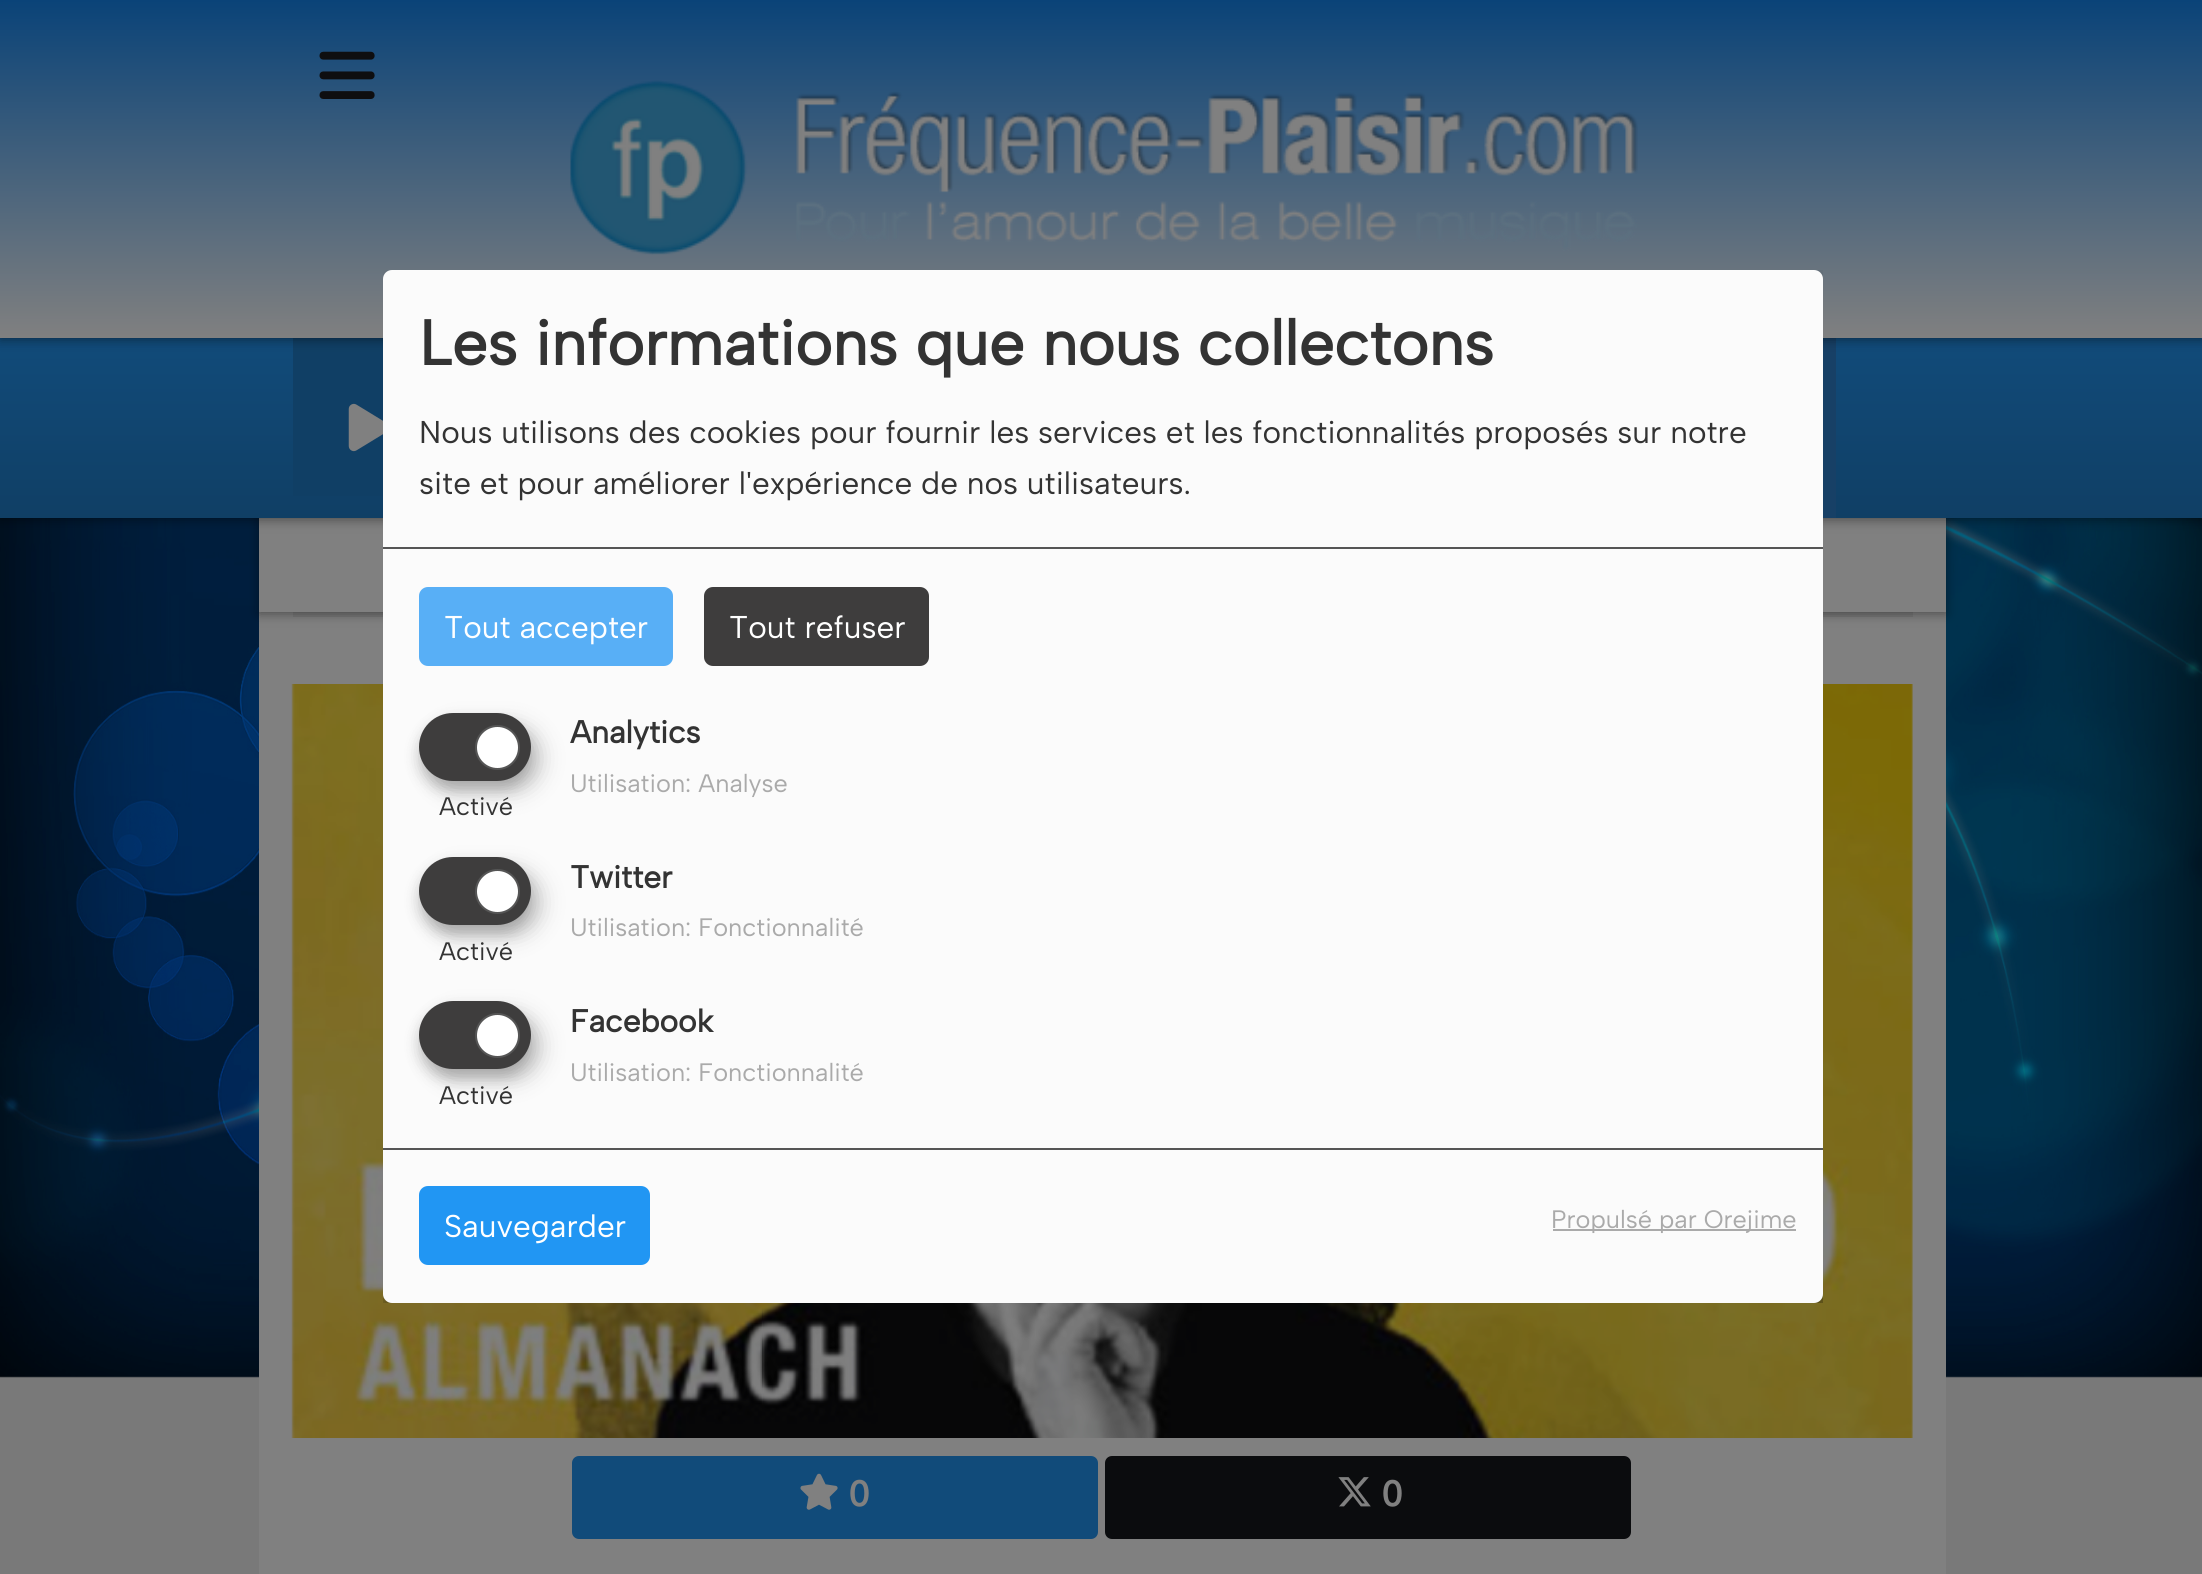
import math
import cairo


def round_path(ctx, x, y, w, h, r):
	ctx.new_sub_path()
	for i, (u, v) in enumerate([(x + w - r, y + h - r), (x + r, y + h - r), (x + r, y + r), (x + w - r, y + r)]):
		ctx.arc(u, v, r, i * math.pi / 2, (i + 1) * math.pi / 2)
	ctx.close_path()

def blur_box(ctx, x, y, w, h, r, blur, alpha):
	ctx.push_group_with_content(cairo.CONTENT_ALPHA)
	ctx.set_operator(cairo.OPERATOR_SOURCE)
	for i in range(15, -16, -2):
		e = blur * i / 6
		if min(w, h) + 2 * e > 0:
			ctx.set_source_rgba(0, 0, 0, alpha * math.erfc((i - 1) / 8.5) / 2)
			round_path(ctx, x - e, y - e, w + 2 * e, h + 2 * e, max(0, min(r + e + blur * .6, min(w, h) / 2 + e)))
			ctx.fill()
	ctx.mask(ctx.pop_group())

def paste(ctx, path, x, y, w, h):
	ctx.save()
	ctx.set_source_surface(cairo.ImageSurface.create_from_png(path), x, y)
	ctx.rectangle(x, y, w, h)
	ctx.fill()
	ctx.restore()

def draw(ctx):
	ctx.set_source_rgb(0.475, 0.475, 0.475)
	ctx.paint()
	paste(ctx, 'media/1.png', 0, 518, 2202, 860)
	ctx.set_source_rgb(0.502, 0.502, 0.502)
	ctx.rectangle(259, 612, 1687, 962)
	ctx.fill()
	ctx.set_source_rgb(0.467, 0.467, 0.467)
	ctx.rectangle(293, 612, 1620, 5)
	ctx.fill()
	ctx.set_source_rgb(0, 0, 0)
	blur_box(ctx, 259, 419, 1687, 195, 0, 5.5, 0.4)
	ctx.set_source_rgb(0.502, 0.502, 0.502)
	ctx.rectangle(259, 518, 1687, 94)
	ctx.fill()
	ctx.set_source_rgb(0, 0, 0)
	blur_box(ctx, 0, 340, 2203, 180, 0, 5.5, 0.4)
	gradient = cairo.LinearGradient(1101, 337, 1101, 518)
	gradient.add_color_stop_rgba(0, 0.067, 0.294, 0.478, 1)
	gradient.add_color_stop_rgba(1, 0.063, 0.247, 0.396, 1)
	ctx.set_source(gradient)
	ctx.rectangle(0, 338, 2202, 180)
	ctx.fill()
	ctx.set_source_rgb(0.063, 0.247, 0.396)
	ctx.rectangle(293, 338, 90, 158)
	ctx.fill()
	ctx.set_source_rgb(0.09, 0.251, 0.4)
	ctx.rectangle(1823, 338, 13, 180)
	ctx.fill()
	ctx.set_source_rgb(0, 0, 0)
	blur_box(ctx, 0, 2, 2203, 338, 0, 5.5, 0.4)
	gradient = cairo.LinearGradient(1101, 0, 1101, 338)
	gradient.add_color_stop_rgba(0, 0.039, 0.263, 0.471, 1)
	gradient.add_color_stop_rgba(1, 0.502, 0.502, 0.502, 1)
	ctx.set_source(gradient)
	ctx.rectangle(0, 0, 2202, 338)
	ctx.fill()
	paste(ctx, 'media/2.png', 319, 51, 56, 48)
	paste(ctx, 'media/3.png', 570, 80, 1068, 175)
	paste(ctx, 'media/4.png', 348, 403, 35, 49)
	paste(ctx, 'media/5.png', 291, 684, 1622, 754)
	ctx.save()
	ctx.rectangle(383, 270, 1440, 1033)
	ctx.clip()
	ctx.set_source_rgb(0, 0, 0)
	blur_box(ctx, 394, 281, 1440, 1033, 9, 11, 0.19)
	blur_box(ctx, 383, 279, 1440, 1033, 9, 7, 0.2)
	ctx.restore()
	ctx.set_source_rgb(0.984, 0.984, 0.984)
	round_path(ctx, 383, 270, 1440, 1033, 9)
	ctx.fill()
	ctx.set_source_rgb(0.333, 0.333, 0.333)
	ctx.rectangle(383, 547, 1440, 2)
	ctx.fill()
	ctx.select_font_face('Albert Sans', cairo.FONT_SLANT_NORMAL, cairo.FONT_WEIGHT_BOLD)
	ctx.set_font_size(63)
	ctx.set_source_rgb(0.2, 0.2, 0.2)
	ctx.move_to(419, 365)
	ctx.show_text('Les informations que nous collectons')
	ctx.select_font_face('Albert Sans')
	ctx.set_font_size(31.5)
	ctx.move_to(419, 443)
	ctx.show_text('Nous utilisons des cookies pour fournir les services et les fonctionnalités proposés sur notre')
	ctx.move_to(419, 494)
	ctx.show_text('site et pour améliorer l\'expérience de nos utilisateurs.')
	ctx.set_source_rgb(0.345, 0.686, 0.961)
	round_path(ctx, 419, 587, 254, 79, 9)
	ctx.fill()
	ctx.set_source_rgb(1, 1, 1)
	ctx.move_to(444, 638)
	ctx.show_text('Tout accepter')
	ctx.set_source_rgb(0.243, 0.239, 0.239)
	round_path(ctx, 704, 587, 225, 79, 9)
	ctx.fill()
	ctx.set_source_rgb(1, 1, 1)
	ctx.move_to(729, 638)
	ctx.show_text('Tout refuser')
	ctx.select_font_face('Albert Sans', cairo.FONT_SLANT_NORMAL, cairo.FONT_WEIGHT_BOLD)
	ctx.set_source_rgb(0.2, 0.2, 0.2)
	ctx.move_to(570, 743)
	ctx.show_text('Analytics')
	ctx.set_source_rgb(0, 0, 0)
	blur_box(ctx, 430, 725, 112, 67, 33.5, 11, 0.19)
	blur_box(ctx, 419, 722, 112, 68, 34, 7, 0.2)
	ctx.set_source_rgb(0.243, 0.239, 0.239)
	round_path(ctx, 419, 713, 112, 68, 34)
	ctx.fill()
	ctx.set_source_rgb(1, 1, 1)
	ctx.arc(497.5, 747.5, 21.5, 0, 2 * math.pi)
	ctx.fill_preserve()
	ctx.set_source_rgb(0.333, 0.333, 0.333)
	ctx.stroke()
	ctx.select_font_face('Albert Sans')
	ctx.set_font_size(25.25)
	ctx.set_source_rgb(0.2, 0.2, 0.2)
	ctx.move_to(439, 815)
	ctx.show_text('Activé')
	ctx.set_source_rgb(0.667, 0.667, 0.667)
	ctx.move_to(570, 792)
	ctx.show_text('Utilisation: Analyse')
	ctx.select_font_face('Albert Sans', cairo.FONT_SLANT_NORMAL, cairo.FONT_WEIGHT_BOLD)
	ctx.set_font_size(31.5)
	ctx.set_source_rgb(0.2, 0.2, 0.2)
	ctx.move_to(570, 888)
	ctx.show_text('Twitter')
	ctx.set_source_rgb(0, 0, 0)
	blur_box(ctx, 430, 869, 112, 67, 33.5, 11, 0.19)
	blur_box(ctx, 419, 866, 112, 68, 34, 7, 0.2)
	ctx.set_source_rgb(0.243, 0.239, 0.239)
	round_path(ctx, 419, 857, 112, 68, 34)
	ctx.fill()
	ctx.set_source_rgb(1, 1, 1)
	ctx.arc(497.5, 891.5, 21.5, 0, 2 * math.pi)
	ctx.fill_preserve()
	ctx.set_source_rgb(0.333, 0.333, 0.333)
	ctx.stroke()
	ctx.select_font_face('Albert Sans')
	ctx.set_font_size(25.25)
	ctx.set_source_rgb(0.2, 0.2, 0.2)
	ctx.move_to(439, 960)
	ctx.show_text('Activé')
	ctx.set_source_rgb(0.667, 0.667, 0.667)
	ctx.move_to(570, 936)
	ctx.show_text('Utilisation: Fonctionnalité')
	ctx.select_font_face('Albert Sans', cairo.FONT_SLANT_NORMAL, cairo.FONT_WEIGHT_BOLD)
	ctx.set_font_size(31.5)
	ctx.set_source_rgb(0.2, 0.2, 0.2)
	ctx.move_to(570, 1032)
	ctx.show_text('Facebook')
	ctx.set_source_rgb(0, 0, 0)
	blur_box(ctx, 430, 1013, 112, 67, 33.5, 11, 0.19)
	blur_box(ctx, 419, 1010, 112, 68, 34, 7, 0.2)
	ctx.set_source_rgb(0.243, 0.239, 0.239)
	round_path(ctx, 419, 1001, 112, 68, 34)
	ctx.fill()
	ctx.set_source_rgb(1, 1, 1)
	ctx.arc(497.5, 1035.5, 21.5, 0, 2 * math.pi)
	ctx.fill_preserve()
	ctx.set_source_rgb(0.333, 0.333, 0.333)
	ctx.stroke()
	ctx.select_font_face('Albert Sans')
	ctx.set_font_size(25.25)
	ctx.set_source_rgb(0.2, 0.2, 0.2)
	ctx.move_to(439, 1104)
	ctx.show_text('Activé')
	ctx.set_source_rgb(0.667, 0.667, 0.667)
	ctx.move_to(570, 1081)
	ctx.show_text('Utilisation: Fonctionnalité')
	ctx.set_source_rgb(0.333, 0.333, 0.333)
	ctx.rectangle(383, 1148, 1440, 2)
	ctx.fill()
	ctx.set_source_rgb(0.129, 0.588, 0.953)
	round_path(ctx, 419, 1186, 231, 79, 9)
	ctx.fill()
	ctx.set_font_size(31.5)
	ctx.set_source_rgb(1, 1, 1)
	ctx.move_to(444, 1237)
	ctx.show_text('Sauvegarder')
	ctx.set_source_rgb(0.667, 0.667, 0.667)
	ctx.rectangle(1553, 1229, 243, 2)
	ctx.fill()
	ctx.set_font_size(25.25)
	ctx.move_to(1551, 1228)
	ctx.show_text('Propulsé par Orejime')
	ctx.set_source_rgb(0.067, 0.294, 0.478)
	round_path(ctx, 572, 1456, 526, 83, 7)
	ctx.fill()
	paste(ctx, 'media/6.png', 800, 1473, 38, 37)
	ctx.select_font_face('Helvetica', cairo.FONT_SLANT_NORMAL, cairo.FONT_WEIGHT_BOLD)
	ctx.set_font_size(36)
	ctx.set_source_rgb(0.502, 0.502, 0.502)
	ctx.move_to(849, 1506)
	ctx.show_text('0')
	ctx.set_source_rgb(0.043, 0.047, 0.055)
	round_path(ctx, 1105, 1456, 526, 83, 7)
	ctx.fill()
	paste(ctx, 'media/7.png', 1338, 1477, 33, 30)
	ctx.set_source_rgb(0.502, 0.502, 0.502)
	ctx.move_to(1382, 1506)
	ctx.show_text('0')


surface = cairo.ImageSurface(cairo.FORMAT_RGB24, 2202, 1574)
ctx = cairo.Context(surface)
options = cairo.FontOptions()
options.set_hint_metrics(cairo.HINT_METRICS_OFF)
options.set_hint_style(cairo.HINT_STYLE_NONE)
ctx.set_font_options(options)
ctx.set_miter_limit(4)
draw(ctx)
surface.write_to_png('image.png')
